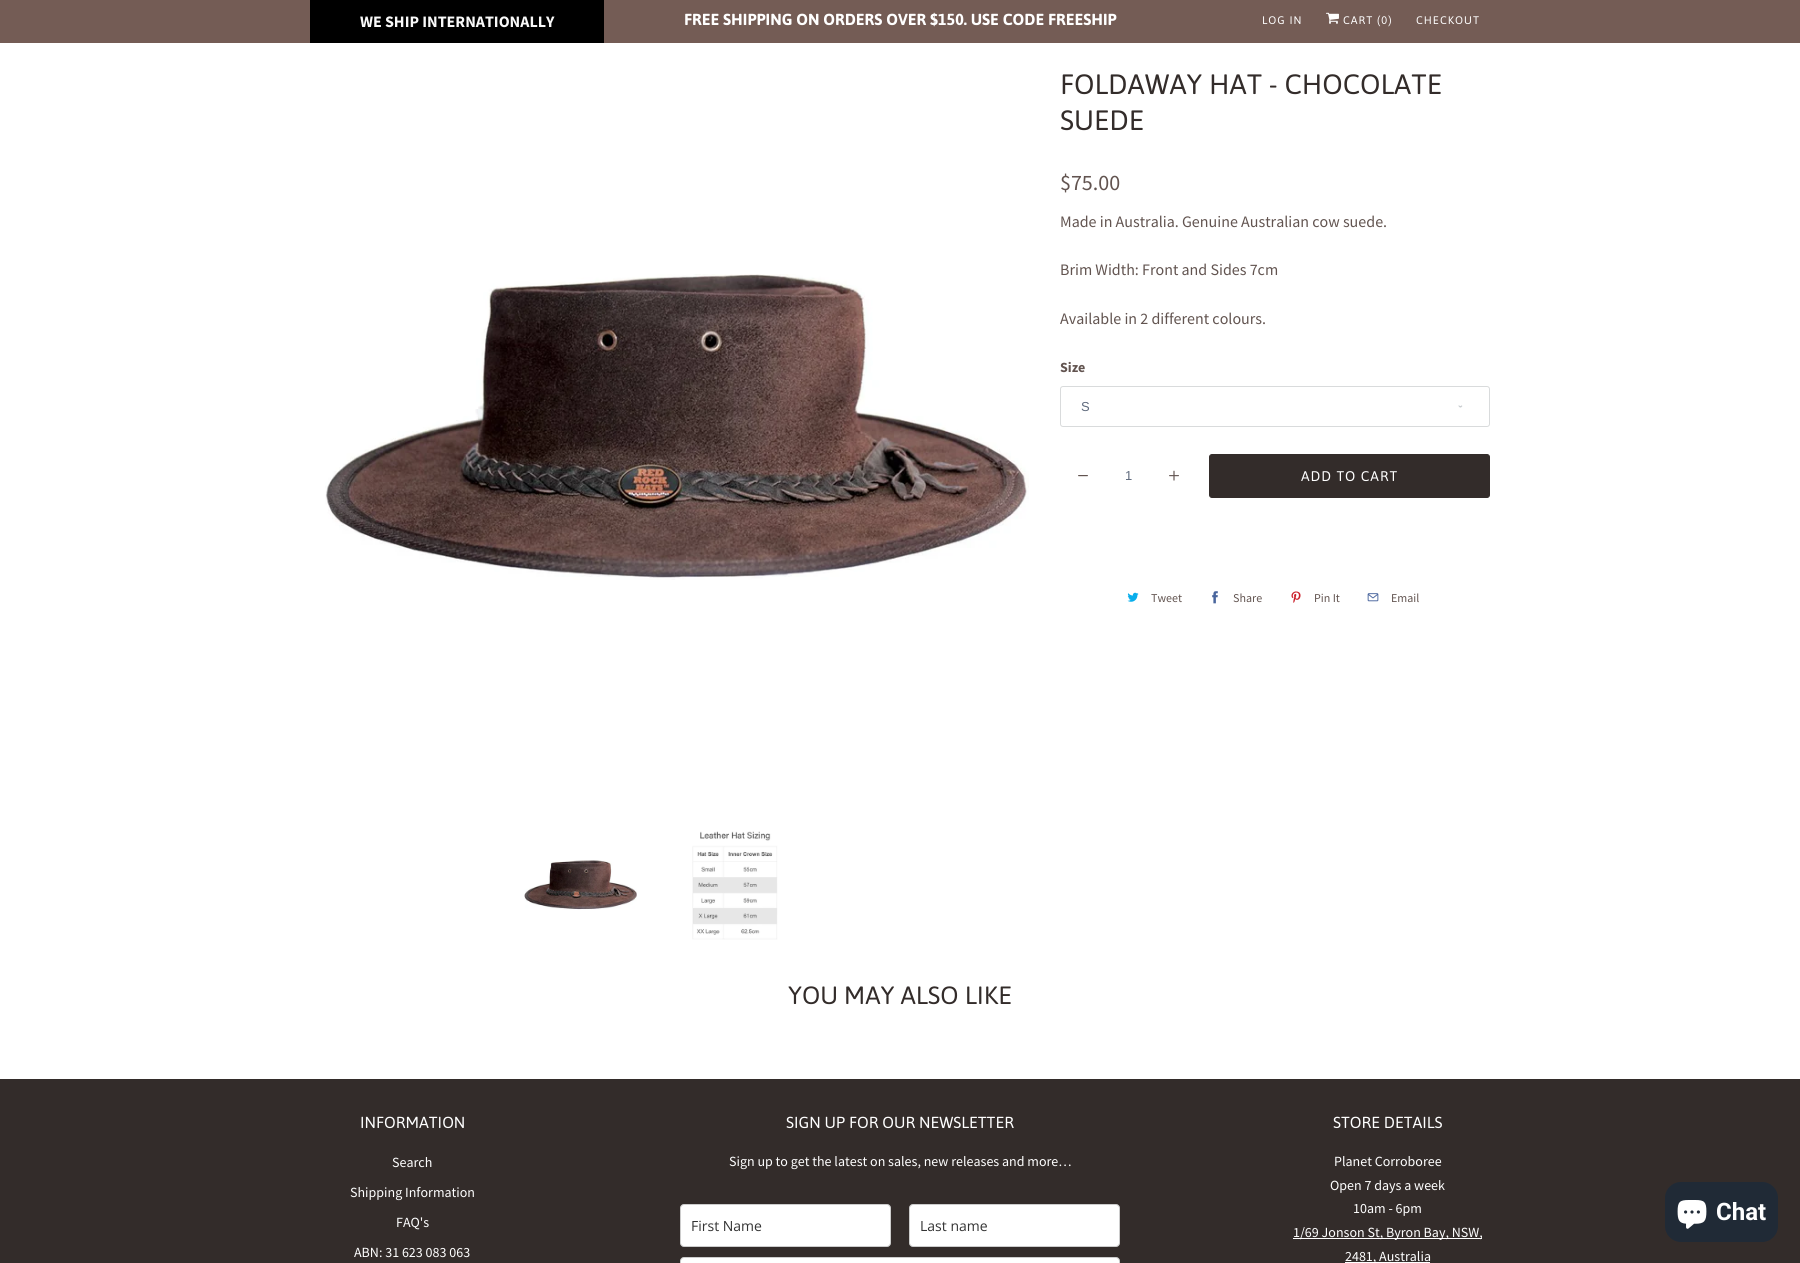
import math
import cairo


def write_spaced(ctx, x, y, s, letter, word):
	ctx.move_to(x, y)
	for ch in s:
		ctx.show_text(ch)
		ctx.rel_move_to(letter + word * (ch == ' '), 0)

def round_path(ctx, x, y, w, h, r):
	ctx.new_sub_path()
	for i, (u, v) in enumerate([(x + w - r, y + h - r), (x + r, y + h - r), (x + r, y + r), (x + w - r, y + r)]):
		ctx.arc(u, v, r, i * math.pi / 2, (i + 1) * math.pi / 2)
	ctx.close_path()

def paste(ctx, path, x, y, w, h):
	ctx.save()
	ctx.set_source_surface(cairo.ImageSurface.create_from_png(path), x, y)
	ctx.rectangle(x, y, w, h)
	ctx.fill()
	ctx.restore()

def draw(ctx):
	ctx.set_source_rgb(1, 1, 1)
	ctx.paint()
	ctx.set_source_rgb(0.455, 0.361, 0.333)
	ctx.rectangle(0, 0, 1800, 43)
	ctx.fill()
	ctx.set_source_rgb(0, 0, 0)
	ctx.rectangle(310, 0, 294, 43)
	ctx.fill()
	ctx.select_font_face('Source Sans Pro', cairo.FONT_SLANT_NORMAL, cairo.FONT_WEIGHT_BOLD)
	ctx.set_font_size(16)
	ctx.set_source_rgb(0.976, 0.976, 0.976)
	ctx.move_to(360, 27)
	ctx.show_text('WE SHIP INTERNATIONALLY')
	ctx.select_font_face('Asap', cairo.FONT_SLANT_NORMAL, cairo.FONT_WEIGHT_BOLD)
	ctx.set_source_rgb(1, 1, 1)
	ctx.move_to(684, 25)
	ctx.show_text('FREE SHIPPING ON ORDERS OVER $150. USE CODE FREESHIP')
	ctx.select_font_face('Asap')
	ctx.set_font_size(11)
	write_spaced(ctx, 1262, 24, 'LOG IN', 1, 0)
	paste(ctx, 'media/1.png', 1326, 12, 13, 12)
	write_spaced(ctx, 1343, 24, 'CART (0)', 1, 0)
	write_spaced(ctx, 1416, 24, 'CHECKOUT', 1, 0)
	paste(ctx, 'media/2.png', 325, 274, 704, 306)
	paste(ctx, 'media/3.png', 524, 860, 113, 50)
	paste(ctx, 'media/4.png', 692, 831, 86, 109)
	ctx.set_font_size(28)
	ctx.set_source_rgb(0.2, 0.173, 0.165)
	ctx.move_to(1060, 94)
	ctx.show_text('FOLDAWAY HAT - CHOCOLATE')
	ctx.move_to(1060, 130)
	ctx.show_text('SUEDE')
	ctx.select_font_face('Source Sans Pro')
	ctx.set_font_size(22)
	ctx.set_source_rgb(0.384, 0.329, 0.314)
	ctx.move_to(1060, 190)
	ctx.show_text('$75.00')
	ctx.set_font_size(16)
	for x, y, s in [
		(1060, 227, 'Made in Australia. Genuine Australian cow suede.'),
		(1060, 275, 'Brim Width: Front and Sides 7cm'),
		(1060, 324, 'Available in 2 different colours.'),
	]:
		ctx.move_to(x, y)
		ctx.show_text(s)
	ctx.select_font_face('Source Sans Pro', cairo.FONT_SLANT_NORMAL, cairo.FONT_WEIGHT_BOLD)
	ctx.set_font_size(14)
	ctx.move_to(1060, 372)
	ctx.show_text('Size')
	paste(ctx, 'media/5.png', 1458, 405, 5, 3)
	round_path(ctx, 1060.5, 386.5, 429, 40, 2.5)
	ctx.set_source_rgb(0.851, 0.859, 0.863)
	ctx.set_line_width(1)
	ctx.stroke()
	ctx.select_font_face('Liberation Sans')
	ctx.set_font_size(13)
	ctx.set_source_rgb(0.373, 0.416, 0.49)
	ctx.move_to(1081, 411)
	ctx.show_text('S')
	paste(ctx, 'media/6.png', 1078, 475, 10, 2)
	ctx.move_to(1125, 480)
	ctx.show_text('1')
	paste(ctx, 'media/7.png', 1169, 470, 10, 11)
	ctx.set_source_rgb(0.2, 0.173, 0.165)
	round_path(ctx, 1209.5, 454.5, 280, 43, 2.5)
	ctx.fill_preserve()
	ctx.stroke()
	ctx.select_font_face('Asap')
	ctx.set_font_size(14)
	ctx.set_source_rgb(1, 1, 1)
	write_spaced(ctx, 1301, 481, 'ADD TO CART', 1, 0)
	paste(ctx, 'media/8.png', 1127, 592, 12, 10)
	ctx.select_font_face('Source Sans Pro')
	ctx.set_font_size(12)
	ctx.set_source_rgb(0.384, 0.329, 0.314)
	ctx.move_to(1151, 602)
	ctx.show_text('Tweet')
	paste(ctx, 'media/9.png', 1212, 591, 6, 13)
	ctx.move_to(1233, 602)
	ctx.show_text('Share')
	paste(ctx, 'media/10.png', 1291, 591, 10, 12)
	ctx.move_to(1314, 602)
	ctx.show_text('Pin It')
	paste(ctx, 'media/11.png', 1367, 593, 12, 9)
	ctx.move_to(1391, 602)
	ctx.show_text('Email')
	ctx.select_font_face('Asap')
	ctx.set_font_size(25)
	ctx.set_source_rgb(0.2, 0.173, 0.165)
	ctx.move_to(788, 1004)
	ctx.show_text('YOU MAY ALSO LIKE')
	ctx.rectangle(0, 1079, 1800, 184)
	ctx.fill()
	ctx.set_font_size(16)
	ctx.set_source_rgb(1, 1, 1)
	ctx.move_to(360, 1128)
	ctx.show_text('INFORMATION')
	ctx.select_font_face('Source Sans Pro')
	ctx.set_font_size(14)
	for x, y, s in [
		(392, 1167, 'Search'),
		(350, 1197, 'Shipping Information'),
		(396, 1227, 'FAQ\'s'),
		(354, 1257, 'ABN: 31 623 083 063'),
	]:
		ctx.move_to(x, y)
		ctx.show_text(s)
	ctx.select_font_face('Asap')
	ctx.set_font_size(16)
	ctx.move_to(786, 1128)
	ctx.show_text('SIGN UP FOR OUR NEWSLETTER')
	ctx.select_font_face('Source Sans Pro')
	ctx.set_font_size(14)
	ctx.move_to(729, 1166)
	ctx.show_text('Sign up to get the latest on sales, new releases and more…')
	round_path(ctx, 680.5, 1204.5, 210, 42, 3.5)
	ctx.fill_preserve()
	ctx.set_source_rgb(0.8, 0.8, 0.8)
	ctx.stroke()
	ctx.select_font_face('Open Sans')
	ctx.set_source_rgb(0.2, 0.2, 0.2)
	ctx.move_to(691, 1231)
	ctx.show_text('First Name')
	ctx.set_source_rgb(1, 1, 1)
	round_path(ctx, 909.5, 1204.5, 210, 42, 3.5)
	ctx.fill_preserve()
	ctx.set_source_rgb(0.8, 0.8, 0.8)
	ctx.stroke()
	ctx.set_source_rgb(0.2, 0.2, 0.2)
	ctx.move_to(920, 1231)
	ctx.show_text('Last name')
	ctx.set_source_rgb(1, 1, 1)
	round_path(ctx, 680.5, 1257.5, 439, 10, 3.5)
	ctx.fill_preserve()
	ctx.set_source_rgb(0.8, 0.8, 0.8)
	ctx.stroke()
	ctx.select_font_face('Asap')
	ctx.set_font_size(16)
	ctx.set_source_rgb(1, 1, 1)
	ctx.move_to(1333, 1128)
	ctx.show_text('STORE DETAILS')
	ctx.select_font_face('Source Sans Pro')
	ctx.set_font_size(14)
	for x, y, s in [
		(1334, 1166, 'Planet Corroboree'),
		(1330, 1190, 'Open 7 days a week'),
		(1353, 1213, '10am - 6pm'),
	]:
		ctx.move_to(x, y)
		ctx.show_text(s)
	ctx.rectangle(1293, 1238, 189, 1)
	ctx.fill()
	ctx.move_to(1293, 1237)
	ctx.show_text('1/69 Jonson St, Byron Bay, NSW,')
	ctx.rectangle(1345, 1262, 85, 1)
	ctx.fill()
	ctx.move_to(1345, 1261)
	ctx.show_text('2481, Australia')
	ctx.set_source_rgb(0.125, 0.165, 0.212)
	round_path(ctx, 1665, 1182, 113, 60, 16)
	ctx.fill()
	paste(ctx, 'media/12.png', 1677, 1200, 30, 29)
	ctx.select_font_face('Roboto', cairo.FONT_SLANT_NORMAL, cairo.FONT_WEIGHT_BOLD)
	ctx.set_font_size(24)
	ctx.set_source_rgb(1, 1, 1)
	ctx.move_to(1716, 1220)
	ctx.show_text('Chat')


surface = cairo.ImageSurface(cairo.FORMAT_RGB24, 1800, 1263)
ctx = cairo.Context(surface)
options = cairo.FontOptions()
options.set_hint_metrics(cairo.HINT_METRICS_OFF)
options.set_hint_style(cairo.HINT_STYLE_NONE)
ctx.set_font_options(options)
ctx.set_miter_limit(4)
draw(ctx)
surface.write_to_png('image.png')
